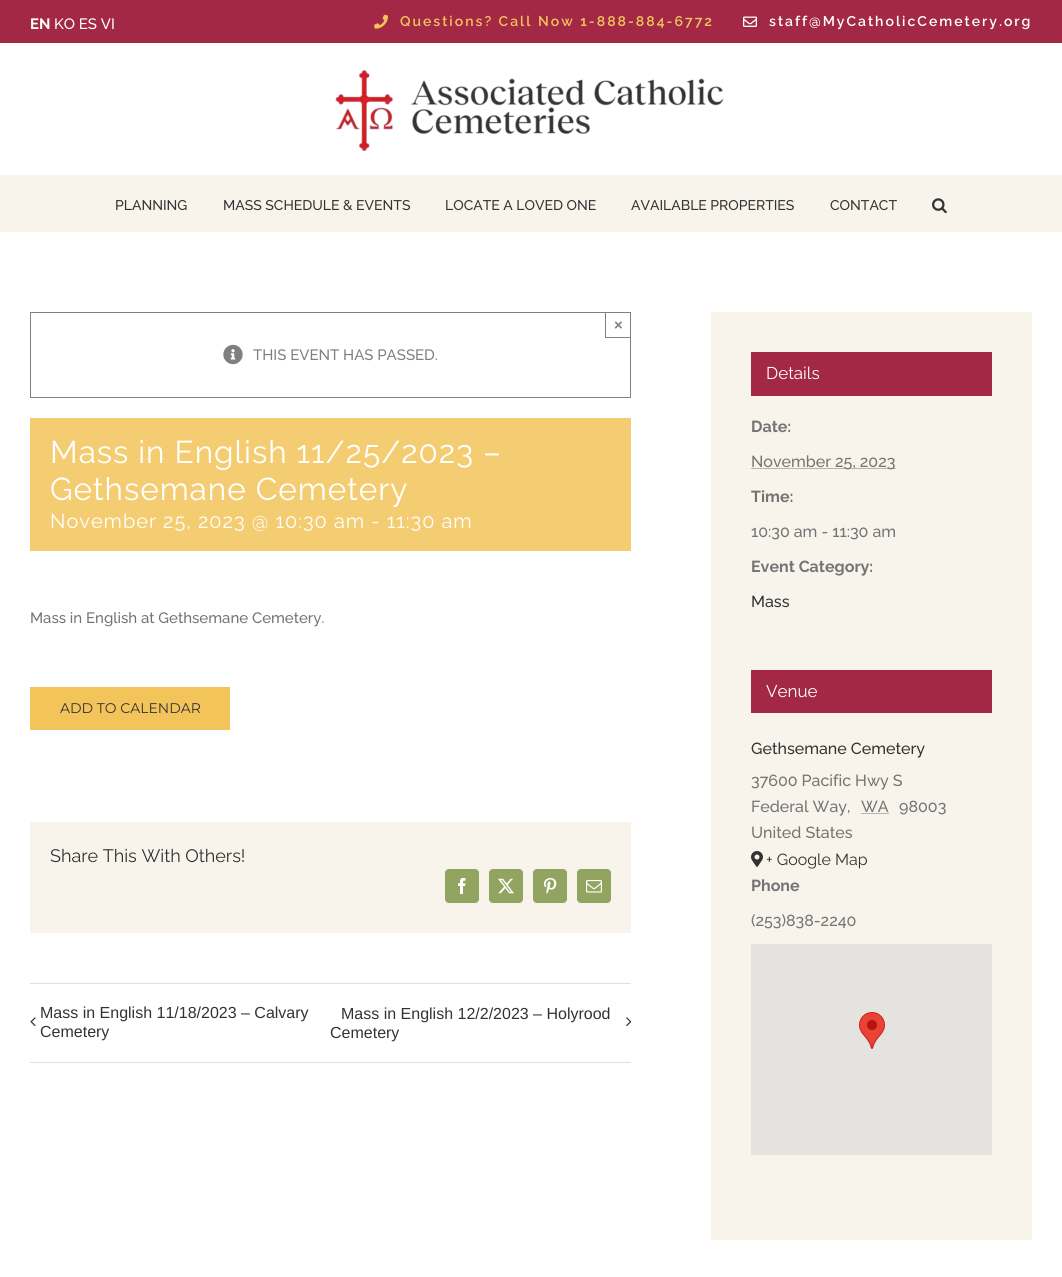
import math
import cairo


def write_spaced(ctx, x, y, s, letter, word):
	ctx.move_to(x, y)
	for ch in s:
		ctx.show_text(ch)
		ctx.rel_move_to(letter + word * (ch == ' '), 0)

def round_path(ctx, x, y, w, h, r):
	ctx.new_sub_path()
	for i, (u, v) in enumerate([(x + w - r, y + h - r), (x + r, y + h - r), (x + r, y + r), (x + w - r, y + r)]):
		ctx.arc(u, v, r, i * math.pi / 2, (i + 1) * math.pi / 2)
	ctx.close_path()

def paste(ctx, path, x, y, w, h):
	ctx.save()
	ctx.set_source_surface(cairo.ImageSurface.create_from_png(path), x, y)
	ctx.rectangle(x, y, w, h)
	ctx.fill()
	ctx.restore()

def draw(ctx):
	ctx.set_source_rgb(1, 1, 1)
	ctx.paint()
	ctx.set_source_rgb(0.635, 0.157, 0.271)
	ctx.rectangle(0, 0, 1062, 43)
	ctx.fill()
	ctx.select_font_face('Raleway', cairo.FONT_SLANT_NORMAL, cairo.FONT_WEIGHT_BOLD)
	ctx.set_font_size(15)
	ctx.set_source_rgb(1, 1, 1)
	ctx.move_to(30, 29)
	ctx.show_text('EN')
	ctx.select_font_face('Raleway Medium')
	ctx.move_to(54, 29)
	ctx.show_text('KO ES VI')
	paste(ctx, 'media/1.png', 374, 14, 14, 15)
	ctx.select_font_face('Raleway SemiBold')
	ctx.set_font_size(14)
	ctx.set_source_rgb(0.949, 0.769, 0.353)
	write_spaced(ctx, 400, 26, 'Questions? Call Now 1-888-884-6772', 2, 0)
	paste(ctx, 'media/2.png', 743, 16, 14, 11)
	ctx.set_source_rgb(1, 1, 1)
	write_spaced(ctx, 769, 26, 'staff@MyCatholicCemetery.org', 2, 0)
	paste(ctx, 'media/3.png', 335, 70, 389, 82)
	ctx.set_source_rgb(0.969, 0.957, 0.922)
	ctx.rectangle(0, 175, 1062, 57)
	ctx.fill()
	ctx.select_font_face('Raleway Medium')
	ctx.set_source_rgb(0.2, 0.2, 0.2)
	for x, y, s in [
		(115, 210, 'PLANNING'),
		(223, 210, 'MASS SCHEDULE & EVENTS'),
		(445, 210, 'LOCATE A LOVED ONE'),
		(631, 210, 'AVAILABLE PROPERTIES'),
		(830, 210, 'CONTACT'),
	]:
		ctx.move_to(x, y)
		ctx.show_text(s)
	paste(ctx, 'media/4.png', 932, 198, 15, 16)
	ctx.rectangle(30.5, 312.5, 600, 85)
	ctx.set_source_rgb(0.502, 0.502, 0.502)
	ctx.set_line_width(1)
	ctx.stroke()
	ctx.rectangle(605, 337, 26, 1)
	ctx.fill()
	ctx.rectangle(605, 312, 1, 26)
	ctx.fill()
	ctx.select_font_face('Liberation Sans', cairo.FONT_SLANT_NORMAL, cairo.FONT_WEIGHT_BOLD)
	ctx.set_font_size(15)
	ctx.move_to(614, 330)
	ctx.show_text('×')
	paste(ctx, 'media/5.png', 223, 344, 20, 21)
	ctx.select_font_face('Raleway Medium')
	ctx.move_to(253, 360)
	ctx.show_text('THIS EVENT HAS PASSED.')
	ctx.set_source_rgb(0.957, 0.804, 0.451)
	ctx.rectangle(30, 418, 601, 133)
	ctx.fill()
	ctx.select_font_face('Raleway')
	ctx.set_font_size(31.5)
	ctx.set_source_rgb(1, 1, 1)
	write_spaced(ctx, 50, 463, 'Mass in English 11/25/2023 –', 1, 0)
	write_spaced(ctx, 50, 500, 'Gethsemane Cemetery', 1, 0)
	ctx.set_font_size(19.95)
	write_spaced(ctx, 50, 528, 'November 25, 2023 @ 10:30 am - 11:30 am', 1, 0)
	ctx.select_font_face('Raleway Medium')
	ctx.set_font_size(15)
	ctx.set_source_rgb(0.455, 0.455, 0.455)
	ctx.move_to(30, 623)
	ctx.show_text('Mass in English at Gethsemane Cemetery.')
	ctx.set_source_rgb(0.949, 0.769, 0.353)
	ctx.rectangle(30, 687, 200, 43)
	ctx.fill()
	ctx.select_font_face('Montserrat Thin')
	ctx.set_font_size(14)
	ctx.set_source_rgb(0.2, 0.2, 0.2)
	ctx.move_to(60, 713)
	ctx.show_text('ADD TO CALENDAR')
	ctx.set_source_rgb(0.969, 0.957, 0.922)
	ctx.rectangle(30, 822, 601, 111)
	ctx.fill()
	ctx.select_font_face('Raleway')
	ctx.set_font_size(18)
	ctx.set_source_rgb(0.2, 0.2, 0.2)
	ctx.move_to(50, 862)
	ctx.show_text('Share This With Others!')
	ctx.set_source_rgb(0.569, 0.647, 0.38)
	round_path(ctx, 445.5, 869.5, 33, 33, 3.5)
	ctx.fill_preserve()
	ctx.stroke()
	paste(ctx, 'media/6.png', 458, 878, 8, 16)
	round_path(ctx, 489.5, 869.5, 33, 33, 3.5)
	ctx.fill_preserve()
	ctx.stroke()
	paste(ctx, 'media/7.png', 498, 878, 16, 16)
	round_path(ctx, 533.5, 869.5, 33, 33, 3.5)
	ctx.fill_preserve()
	ctx.stroke()
	paste(ctx, 'media/8.png', 543, 878, 14, 16)
	round_path(ctx, 577.5, 869.5, 33, 33, 3.5)
	ctx.fill_preserve()
	ctx.stroke()
	paste(ctx, 'media/9.png', 586, 880, 16, 13)
	ctx.set_source_rgb(0.878, 0.871, 0.871)
	ctx.rectangle(30, 983, 601, 1)
	ctx.fill()
	ctx.rectangle(30, 1062, 601, 1)
	ctx.fill()
	paste(ctx, 'media/10.png', 30, 1017, 6, 10)
	ctx.select_font_face('Liberation Sans')
	ctx.set_font_size(16)
	ctx.set_source_rgb(0.2, 0.2, 0.2)
	for x, y, s in [
		(40, 1018, 'Mass in English 11/18/2023 – Calvary'),
		(40, 1037, 'Cemetery'),
		(341, 1019, 'Mass in English 12/2/2023 – Holyrood'),
	]:
		ctx.move_to(x, y)
		ctx.show_text(s)
	paste(ctx, 'media/11.png', 626, 1017, 5, 10)
	ctx.move_to(330, 1038)
	ctx.show_text('Cemetery')
	ctx.set_source_rgb(0.969, 0.957, 0.922)
	ctx.rectangle(711, 312, 321, 928)
	ctx.fill()
	ctx.set_source_rgb(0.635, 0.157, 0.271)
	ctx.rectangle(751, 352, 241, 44)
	ctx.fill()
	ctx.select_font_face('Raleway')
	ctx.set_font_size(17)
	ctx.set_source_rgb(1, 1, 1)
	ctx.move_to(766, 379)
	ctx.show_text('Details')
	ctx.select_font_face('Raleway', cairo.FONT_SLANT_NORMAL, cairo.FONT_WEIGHT_BOLD)
	ctx.set_font_size(16)
	ctx.set_source_rgb(0.455, 0.455, 0.455)
	ctx.move_to(751, 432)
	ctx.show_text('Date:')
	ctx.new_path()
	ctx.move_to(751.5, 468.5)
	ctx.line_to(896, 468.5)
	ctx.set_dash([1, 1])
	ctx.stroke()
	ctx.select_font_face('Raleway Medium')
	ctx.move_to(751, 467)
	ctx.show_text('November 25, 2023')
	ctx.select_font_face('Raleway', cairo.FONT_SLANT_NORMAL, cairo.FONT_WEIGHT_BOLD)
	ctx.move_to(751, 502)
	ctx.show_text('Time:')
	ctx.select_font_face('Raleway Medium')
	ctx.move_to(751, 537)
	ctx.show_text('10:30 am - 11:30 am')
	ctx.select_font_face('Raleway', cairo.FONT_SLANT_NORMAL, cairo.FONT_WEIGHT_BOLD)
	ctx.move_to(751, 572)
	ctx.show_text('Event Category:')
	ctx.select_font_face('Raleway Medium')
	ctx.set_source_rgb(0.2, 0.2, 0.2)
	ctx.move_to(751, 607)
	ctx.show_text('Mass')
	ctx.set_source_rgb(0.635, 0.157, 0.271)
	ctx.rectangle(751, 670, 241, 43)
	ctx.fill()
	ctx.select_font_face('Raleway')
	ctx.set_font_size(17)
	ctx.set_source_rgb(1, 1, 1)
	ctx.move_to(766, 697)
	ctx.show_text('Venue')
	ctx.select_font_face('Raleway Medium')
	ctx.set_font_size(16)
	ctx.set_source_rgb(0.2, 0.2, 0.2)
	ctx.move_to(751, 754)
	ctx.show_text('Gethsemane Cemetery')
	ctx.set_source_rgb(0.455, 0.455, 0.455)
	for x, y, s in [
		(751, 786, '37600 Pacific Hwy S'),
		(751, 812, 'Federal Way,'),
		(861, 812, 'WA'),
	]:
		ctx.move_to(x, y)
		ctx.show_text(s)
	ctx.new_path()
	ctx.move_to(861.5, 813.5)
	ctx.line_to(889, 813.5)
	ctx.stroke()
	ctx.move_to(899, 812)
	ctx.show_text('98003')
	ctx.move_to(751, 838)
	ctx.show_text('United States')
	paste(ctx, 'media/12.png', 751, 851, 12, 16)
	ctx.select_font_face('Raleway')
	ctx.set_source_rgb(0.2, 0.2, 0.2)
	ctx.move_to(766, 865)
	ctx.show_text('+ Google Map')
	ctx.select_font_face('Raleway', cairo.FONT_SLANT_NORMAL, cairo.FONT_WEIGHT_BOLD)
	ctx.set_source_rgb(0.455, 0.455, 0.455)
	ctx.move_to(751, 891)
	ctx.show_text('Phone')
	ctx.select_font_face('Raleway Medium')
	ctx.move_to(751, 926)
	ctx.show_text('(253)838-2240')
	ctx.set_source_rgb(0.898, 0.89, 0.875)
	ctx.rectangle(751, 944, 241, 211)
	ctx.fill()
	paste(ctx, 'media/13.png', 859, 1012, 26, 37)


surface = cairo.ImageSurface(cairo.FORMAT_RGB24, 1062, 1277)
ctx = cairo.Context(surface)
options = cairo.FontOptions()
options.set_hint_metrics(cairo.HINT_METRICS_OFF)
options.set_hint_style(cairo.HINT_STYLE_NONE)
ctx.set_font_options(options)
ctx.set_miter_limit(4)
draw(ctx)
surface.write_to_png('image.png')
